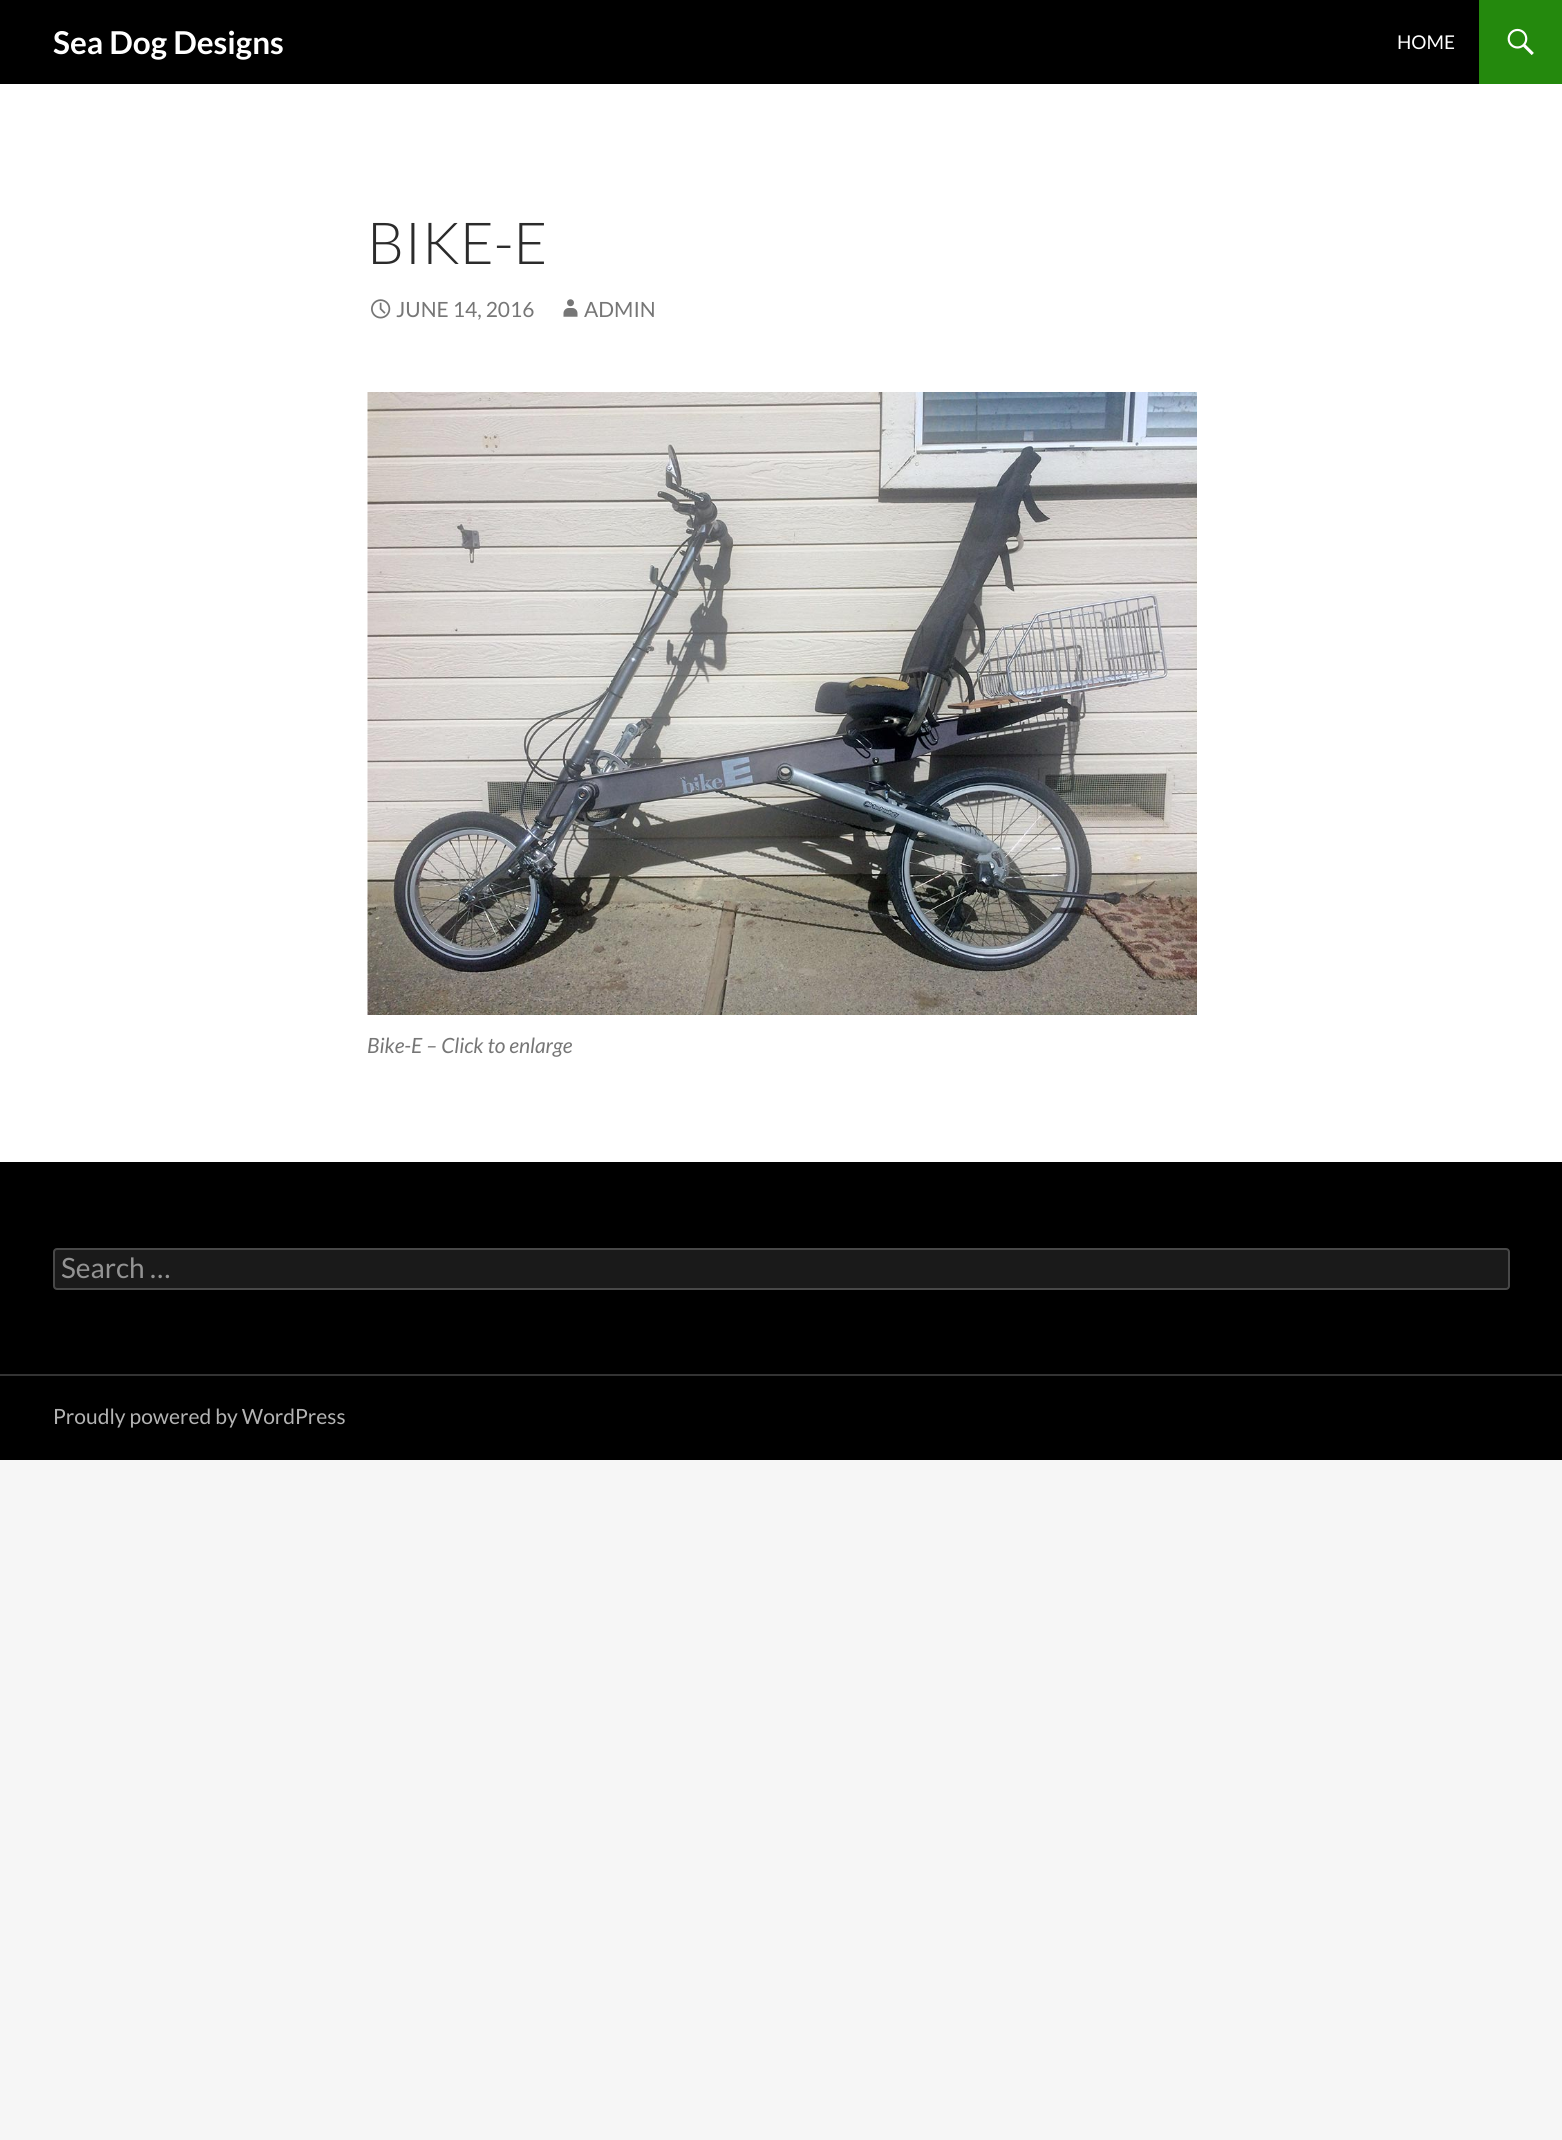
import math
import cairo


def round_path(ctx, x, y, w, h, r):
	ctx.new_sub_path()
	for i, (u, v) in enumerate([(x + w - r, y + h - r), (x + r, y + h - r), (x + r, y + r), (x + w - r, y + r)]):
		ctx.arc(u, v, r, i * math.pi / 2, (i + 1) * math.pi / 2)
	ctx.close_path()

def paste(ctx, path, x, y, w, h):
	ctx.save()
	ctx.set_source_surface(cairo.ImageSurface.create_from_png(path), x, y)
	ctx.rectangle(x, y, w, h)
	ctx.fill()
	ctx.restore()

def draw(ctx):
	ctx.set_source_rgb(0.961, 0.961, 0.961)
	ctx.paint()
	ctx.set_source_rgb(1, 1, 1)
	ctx.rectangle(0, 84, 1562, 1078)
	ctx.fill()
	ctx.set_source_rgb(0, 0, 0)
	ctx.rectangle(0, 0, 1479, 84)
	ctx.fill()
	ctx.select_font_face('Lato', cairo.FONT_SLANT_NORMAL, cairo.FONT_WEIGHT_BOLD)
	ctx.set_font_size(31.5)
	ctx.set_source_rgb(1, 1, 1)
	ctx.move_to(53, 54)
	ctx.show_text('Sea Dog Designs')
	ctx.select_font_face('Lato')
	ctx.set_font_size(19)
	ctx.move_to(1397, 49)
	ctx.show_text('HOME')
	ctx.set_source_rgb(0.141, 0.537, 0.051)
	ctx.rectangle(1479, 0, 83, 84)
	ctx.fill()
	paste(ctx, 'media/1.png', 1507, 28, 27, 27)
	ctx.select_font_face('Lato Light')
	ctx.set_font_size(58)
	ctx.set_source_rgb(0.169, 0.169, 0.169)
	ctx.move_to(367, 264)
	ctx.show_text('BIKE-E')
	paste(ctx, 'media/2.png', 371, 299, 20, 20)
	ctx.select_font_face('Lato')
	ctx.set_font_size(21)
	ctx.set_source_rgb(0.463, 0.463, 0.463)
	ctx.move_to(396, 317)
	ctx.show_text('JUNE 14, 2016')
	paste(ctx, 'media/3.png', 563, 299, 15, 18)
	ctx.move_to(584, 317)
	ctx.show_text('ADMIN')
	paste(ctx, 'media/4.png', 367, 392, 830, 623)
	ctx.select_font_face('Lato', cairo.FONT_SLANT_ITALIC)
	ctx.move_to(367, 1053)
	ctx.show_text('Bike-E – Click to enlarge')
	ctx.set_source_rgb(0, 0, 0)
	ctx.rectangle(0, 1162, 1562, 212)
	ctx.fill()
	ctx.set_source_rgb(0.2, 0.2, 0.2)
	ctx.rectangle(0, 1374, 1562, 2)
	ctx.fill()
	ctx.set_source_rgb(0.102, 0.102, 0.102)
	round_path(ctx, 53, 1248, 1457, 42, 4)
	ctx.fill()
	round_path(ctx, 54, 1249, 1455, 40, 3)
	ctx.set_source_rgba(1, 1, 1, 0.2)
	ctx.stroke()
	ctx.select_font_face('Lato')
	ctx.set_font_size(28)
	ctx.set_source_rgb(0.576, 0.576, 0.576)
	ctx.move_to(61, 1278)
	ctx.show_text('Search …')
	ctx.set_source_rgb(0, 0, 0)
	ctx.rectangle(0, 1376, 1562, 84)
	ctx.fill()
	ctx.set_font_size(21)
	ctx.set_source_rgb(0.702, 0.702, 0.702)
	ctx.move_to(53, 1424)
	ctx.show_text('Proudly powered by WordPress')


surface = cairo.ImageSurface(cairo.FORMAT_RGB24, 1562, 2140)
ctx = cairo.Context(surface)
options = cairo.FontOptions()
options.set_hint_metrics(cairo.HINT_METRICS_OFF)
options.set_hint_style(cairo.HINT_STYLE_NONE)
ctx.set_font_options(options)
ctx.set_miter_limit(4)
draw(ctx)
surface.write_to_png('image.png')
